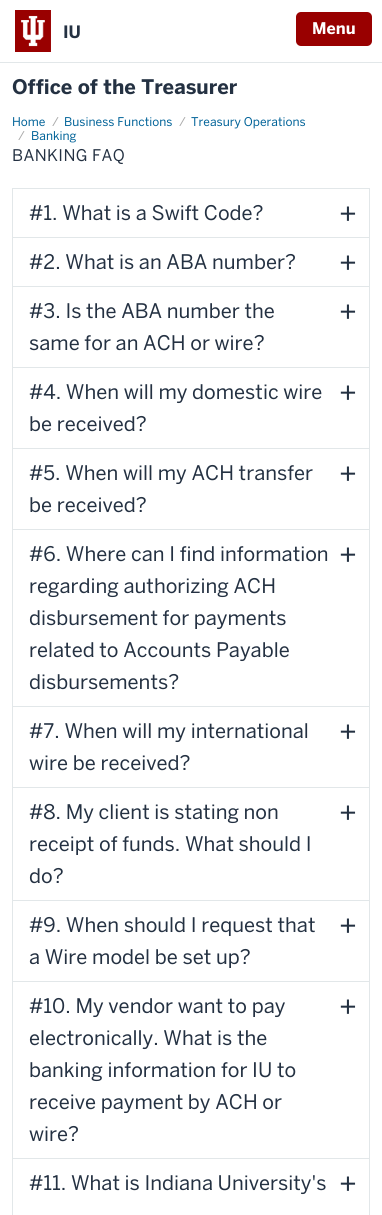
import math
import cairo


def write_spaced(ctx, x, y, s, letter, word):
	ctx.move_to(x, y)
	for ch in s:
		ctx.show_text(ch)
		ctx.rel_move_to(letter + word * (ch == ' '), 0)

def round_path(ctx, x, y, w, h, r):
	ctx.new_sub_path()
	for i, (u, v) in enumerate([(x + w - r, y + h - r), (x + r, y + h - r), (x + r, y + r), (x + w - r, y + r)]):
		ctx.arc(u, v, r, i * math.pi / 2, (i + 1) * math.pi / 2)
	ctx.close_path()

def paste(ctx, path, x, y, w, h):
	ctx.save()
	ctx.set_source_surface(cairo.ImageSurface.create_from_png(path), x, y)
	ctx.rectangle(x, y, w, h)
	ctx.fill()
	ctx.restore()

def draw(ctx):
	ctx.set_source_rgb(1, 1, 1)
	ctx.paint()
	ctx.set_source_rgb(0.886, 0.906, 0.914)
	ctx.rectangle(0, 62, 382, 1)
	ctx.fill()
	paste(ctx, 'media/1.png', 15, 10, 36, 42)
	ctx.select_font_face('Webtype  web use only', cairo.FONT_SLANT_NORMAL, cairo.FONT_WEIGHT_BOLD)
	ctx.set_font_size(17)
	ctx.set_source_rgb(0.141, 0.192, 0.259)
	ctx.move_to(63, 38)
	ctx.show_text('IU')
	ctx.set_source_rgb(0.6, 0, 0)
	round_path(ctx, 296, 12, 76, 34, 5)
	ctx.fill()
	ctx.set_font_size(16)
	ctx.set_source_rgb(1, 1, 1)
	ctx.move_to(312, 34)
	ctx.show_text('Menu')
	ctx.set_font_size(20)
	ctx.set_source_rgb(0.141, 0.192, 0.259)
	ctx.move_to(12, 94)
	ctx.show_text('Office of the Treasurer')
	ctx.select_font_face('Webtype  web use only')
	ctx.set_font_size(12)
	ctx.set_source_rgb(0, 0.384, 0.596)
	ctx.move_to(12, 126)
	ctx.show_text('Home')
	ctx.set_source_rgb(0.667, 0.667, 0.667)
	ctx.move_to(52, 126)
	ctx.show_text('/')
	ctx.set_source_rgb(0, 0.384, 0.596)
	ctx.move_to(64, 126)
	ctx.show_text('Business Functions')
	ctx.set_source_rgb(0.667, 0.667, 0.667)
	ctx.move_to(179, 126)
	ctx.show_text('/')
	ctx.set_source_rgb(0, 0.384, 0.596)
	ctx.move_to(191, 126)
	ctx.show_text('Treasury Operations')
	ctx.set_source_rgb(0.667, 0.667, 0.667)
	ctx.move_to(18, 140)
	ctx.show_text('/')
	ctx.set_source_rgb(0, 0.384, 0.596)
	ctx.move_to(31, 140)
	ctx.show_text('Banking')
	ctx.set_font_size(16)
	ctx.set_source_rgb(0.141, 0.192, 0.259)
	write_spaced(ctx, 12, 161, 'BANKING FAQ', 0.4, 0)
	ctx.set_source_rgb(0.886, 0.906, 0.914)
	ctx.rectangle(12, 188, 358, 1)
	ctx.rectangle(369, 188, 1, 49)
	ctx.rectangle(12, 188, 1, 49)
	ctx.fill()
	ctx.set_font_size(20)
	ctx.set_source_rgb(0.141, 0.192, 0.259)
	ctx.move_to(29, 220)
	ctx.show_text('#1. What is a Swift Code?')
	ctx.set_font_size(28)
	ctx.move_to(339, 223)
	ctx.show_text('+')
	ctx.set_source_rgb(0.886, 0.906, 0.914)
	ctx.rectangle(12, 237, 358, 1)
	ctx.rectangle(369, 237, 1, 49)
	ctx.rectangle(12, 237, 1, 49)
	ctx.fill()
	ctx.set_font_size(20)
	ctx.set_source_rgb(0.141, 0.192, 0.259)
	ctx.move_to(29, 269)
	ctx.show_text('#2. What is an ABA number?')
	ctx.set_font_size(28)
	ctx.move_to(339, 272)
	ctx.show_text('+')
	ctx.set_source_rgb(0.886, 0.906, 0.914)
	ctx.rectangle(12, 286, 358, 1)
	ctx.rectangle(369, 286, 1, 81)
	ctx.rectangle(12, 286, 1, 81)
	ctx.fill()
	ctx.set_font_size(20)
	ctx.set_source_rgb(0.141, 0.192, 0.259)
	ctx.move_to(29, 318)
	ctx.show_text('#3. Is the ABA number the')
	ctx.set_font_size(28)
	ctx.move_to(339, 321)
	ctx.show_text('+')
	ctx.set_font_size(20)
	ctx.move_to(29, 350)
	ctx.show_text('same for an ACH or wire?')
	ctx.set_source_rgb(0.886, 0.906, 0.914)
	ctx.rectangle(12, 367, 358, 1)
	ctx.rectangle(369, 367, 1, 81)
	ctx.rectangle(12, 367, 1, 81)
	ctx.fill()
	ctx.set_source_rgb(0.141, 0.192, 0.259)
	ctx.move_to(29, 399)
	ctx.show_text('#4. When will my domestic wire')
	ctx.set_font_size(28)
	ctx.move_to(339, 402)
	ctx.show_text('+')
	ctx.set_font_size(20)
	ctx.move_to(29, 431)
	ctx.show_text('be received?')
	ctx.set_source_rgb(0.886, 0.906, 0.914)
	ctx.rectangle(12, 448, 358, 1)
	ctx.rectangle(369, 448, 1, 81)
	ctx.rectangle(12, 448, 1, 81)
	ctx.fill()
	ctx.set_source_rgb(0.141, 0.192, 0.259)
	ctx.move_to(29, 480)
	ctx.show_text('#5. When will my ACH transfer')
	ctx.set_font_size(28)
	ctx.move_to(339, 483)
	ctx.show_text('+')
	ctx.set_font_size(20)
	ctx.move_to(29, 512)
	ctx.show_text('be received?')
	ctx.set_source_rgb(0.886, 0.906, 0.914)
	ctx.rectangle(12, 529, 358, 1)
	ctx.rectangle(369, 529, 1, 177)
	ctx.rectangle(12, 529, 1, 177)
	ctx.fill()
	ctx.set_source_rgb(0.141, 0.192, 0.259)
	ctx.move_to(29, 561)
	ctx.show_text('#6. Where can I find information')
	ctx.set_font_size(28)
	ctx.move_to(339, 564)
	ctx.show_text('+')
	ctx.set_font_size(20)
	for x, y, s in [
		(29, 593, 'regarding authorizing ACH'),
		(29, 625, 'disbursement for payments'),
		(29, 657, 'related to Accounts Payable'),
		(29, 689, 'disbursements?'),
	]:
		ctx.move_to(x, y)
		ctx.show_text(s)
	ctx.set_source_rgb(0.886, 0.906, 0.914)
	ctx.rectangle(12, 706, 358, 1)
	ctx.rectangle(369, 706, 1, 81)
	ctx.rectangle(12, 706, 1, 81)
	ctx.fill()
	ctx.set_source_rgb(0.141, 0.192, 0.259)
	ctx.move_to(29, 738)
	ctx.show_text('#7. When will my international')
	ctx.set_font_size(28)
	ctx.move_to(339, 741)
	ctx.show_text('+')
	ctx.set_font_size(20)
	ctx.move_to(29, 770)
	ctx.show_text('wire be received?')
	ctx.set_source_rgb(0.886, 0.906, 0.914)
	ctx.rectangle(12, 787, 358, 1)
	ctx.rectangle(369, 787, 1, 113)
	ctx.rectangle(12, 787, 1, 113)
	ctx.fill()
	ctx.set_source_rgb(0.141, 0.192, 0.259)
	ctx.move_to(29, 819)
	ctx.show_text('#8. My client is stating non')
	ctx.set_font_size(28)
	ctx.move_to(339, 822)
	ctx.show_text('+')
	ctx.set_font_size(20)
	ctx.move_to(29, 851)
	ctx.show_text('receipt of funds. What should I')
	ctx.move_to(29, 883)
	ctx.show_text('do?')
	ctx.set_source_rgb(0.886, 0.906, 0.914)
	ctx.rectangle(12, 900, 358, 1)
	ctx.rectangle(369, 900, 1, 81)
	ctx.rectangle(12, 900, 1, 81)
	ctx.fill()
	ctx.set_source_rgb(0.141, 0.192, 0.259)
	ctx.move_to(29, 932)
	ctx.show_text('#9. When should I request that')
	ctx.set_font_size(28)
	ctx.move_to(339, 935)
	ctx.show_text('+')
	ctx.set_font_size(20)
	ctx.move_to(29, 964)
	ctx.show_text('a Wire model be set up?')
	ctx.set_source_rgb(0.886, 0.906, 0.914)
	ctx.rectangle(12, 981, 358, 1)
	ctx.rectangle(369, 981, 1, 177)
	ctx.rectangle(12, 981, 1, 177)
	ctx.fill()
	ctx.set_source_rgb(0.141, 0.192, 0.259)
	ctx.move_to(29, 1013)
	ctx.show_text('#10. My vendor want to pay')
	ctx.set_font_size(28)
	ctx.move_to(339, 1016)
	ctx.show_text('+')
	ctx.set_font_size(20)
	for x, y, s in [
		(29, 1045, 'electronically. What is the'),
		(29, 1077, 'banking information for IU to'),
		(29, 1109, 'receive payment by ACH or'),
		(29, 1141, 'wire?'),
	]:
		ctx.move_to(x, y)
		ctx.show_text(s)
	ctx.set_source_rgb(0.886, 0.906, 0.914)
	ctx.rectangle(12, 1158, 358, 1)
	ctx.rectangle(369, 1158, 1, 57)
	ctx.rectangle(12, 1158, 1, 57)
	ctx.fill()
	ctx.set_source_rgb(0.141, 0.192, 0.259)
	ctx.move_to(29, 1190)
	ctx.show_text('#11. What is Indiana University\'s')
	ctx.set_font_size(28)
	ctx.move_to(339, 1193)
	ctx.show_text('+')


surface = cairo.ImageSurface(cairo.FORMAT_RGB24, 382, 1215)
ctx = cairo.Context(surface)
options = cairo.FontOptions()
options.set_hint_metrics(cairo.HINT_METRICS_OFF)
options.set_hint_style(cairo.HINT_STYLE_NONE)
ctx.set_font_options(options)
ctx.set_miter_limit(4)
draw(ctx)
surface.write_to_png('image.png')
